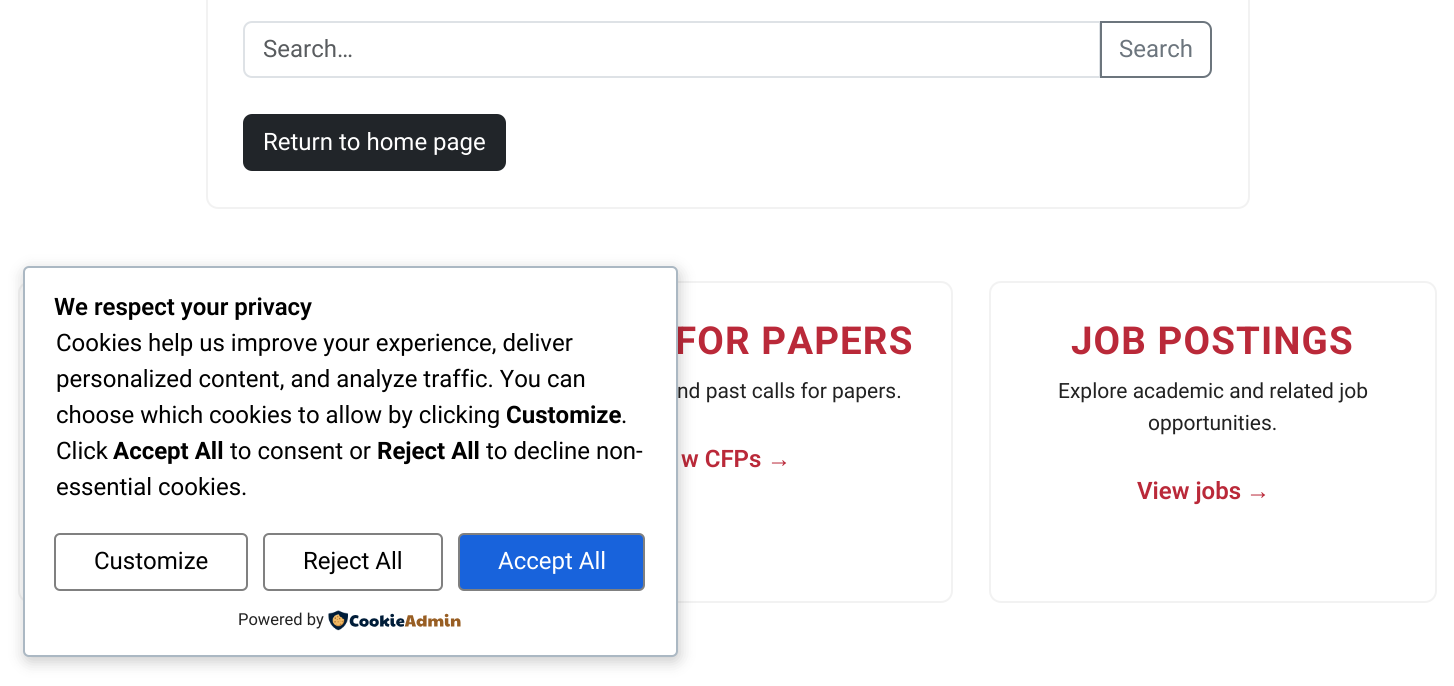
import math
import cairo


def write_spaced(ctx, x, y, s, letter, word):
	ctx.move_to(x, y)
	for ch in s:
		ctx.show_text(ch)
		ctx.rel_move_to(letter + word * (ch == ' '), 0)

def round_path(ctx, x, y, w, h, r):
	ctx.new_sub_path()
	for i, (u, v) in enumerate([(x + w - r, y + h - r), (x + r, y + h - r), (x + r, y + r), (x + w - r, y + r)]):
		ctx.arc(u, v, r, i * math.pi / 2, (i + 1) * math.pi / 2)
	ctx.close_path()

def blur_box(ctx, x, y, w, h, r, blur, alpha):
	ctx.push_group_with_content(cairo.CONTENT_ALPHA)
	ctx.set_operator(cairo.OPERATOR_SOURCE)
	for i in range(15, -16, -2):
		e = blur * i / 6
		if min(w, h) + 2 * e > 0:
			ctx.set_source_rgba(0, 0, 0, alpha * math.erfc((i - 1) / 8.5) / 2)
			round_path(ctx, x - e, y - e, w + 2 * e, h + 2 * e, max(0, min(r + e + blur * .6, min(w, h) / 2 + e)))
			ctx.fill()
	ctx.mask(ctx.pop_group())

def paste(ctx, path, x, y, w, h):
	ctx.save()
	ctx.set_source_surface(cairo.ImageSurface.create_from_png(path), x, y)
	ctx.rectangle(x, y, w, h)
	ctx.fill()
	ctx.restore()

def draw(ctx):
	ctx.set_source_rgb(1, 1, 1)
	ctx.paint()
	round_path(ctx, 207, -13, 1042, 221, 11)
	ctx.set_source_rgb(0.949, 0.949, 0.949)
	ctx.stroke()
	ctx.new_path()
	ctx.move_to(252, 22)
	ctx.line_to(1100, 22)
	ctx.line_to(1100, 77)
	ctx.line_to(252, 77)
	ctx.curve_to(247.5, 77, 244, 73.5, 244, 69)
	ctx.line_to(244, 30)
	ctx.curve_to(244, 25.5, 247.5, 22, 252, 22)
	ctx.close_path()
	ctx.set_source_rgb(0.871, 0.886, 0.902)
	ctx.stroke()
	ctx.select_font_face('Roboto')
	ctx.set_font_size(24)
	ctx.set_source_rgb(0.349, 0.361, 0.373)
	ctx.move_to(263, 57)
	ctx.show_text('Search…')
	ctx.new_path()
	ctx.move_to(1101, 22)
	ctx.line_to(1203, 22)
	ctx.curve_to(1207.5, 22, 1211, 25.5, 1211, 30)
	ctx.line_to(1211, 69)
	ctx.curve_to(1211, 73.5, 1207.5, 77, 1203, 77)
	ctx.line_to(1101, 77)
	ctx.close_path()
	ctx.set_source_rgb(0.424, 0.459, 0.49)
	ctx.stroke()
	ctx.move_to(1119, 57)
	ctx.show_text('Search')
	ctx.set_source_rgb(0.129, 0.145, 0.161)
	round_path(ctx, 244, 115, 261, 55, 8)
	ctx.fill_preserve()
	ctx.stroke()
	ctx.set_source_rgb(1, 1, 1)
	ctx.move_to(263, 150)
	ctx.show_text('Return to home page')
	round_path(ctx, 19, 282, 447, 320, 11)
	ctx.set_source_rgb(0.949, 0.949, 0.949)
	ctx.stroke()
	round_path(ctx, 504, 282, 448, 320, 11)
	ctx.stroke()
	ctx.select_font_face('Roboto', cairo.FONT_SLANT_NORMAL, cairo.FONT_WEIGHT_BOLD)
	ctx.set_font_size(38.5)
	ctx.set_source_rgb(0.729, 0.161, 0.224)
	write_spaced(ctx, 675, 354, 'FOR PAPERS', 1.1, 0)
	ctx.select_font_face('Roboto')
	ctx.set_font_size(21)
	ctx.set_source_rgb(0.133, 0.133, 0.133)
	ctx.move_to(677, 398)
	ctx.show_text('nd past calls for papers.')
	ctx.select_font_face('Roboto SemiBold')
	ctx.set_font_size(24)
	ctx.set_source_rgb(0.729, 0.161, 0.224)
	ctx.move_to(681, 467)
	ctx.show_text('w CFPs')
	ctx.select_font_face('Liberation Sans', cairo.FONT_SLANT_NORMAL, cairo.FONT_WEIGHT_BOLD)
	ctx.move_to(767, 467)
	ctx.show_text('→')
	round_path(ctx, 990, 282, 446, 320, 11)
	ctx.set_source_rgb(0.949, 0.949, 0.949)
	ctx.stroke()
	ctx.select_font_face('Roboto', cairo.FONT_SLANT_NORMAL, cairo.FONT_WEIGHT_BOLD)
	ctx.set_font_size(38.5)
	ctx.set_source_rgb(0.729, 0.161, 0.224)
	write_spaced(ctx, 1071, 354, 'JOB POSTINGS', 1.1, 0)
	ctx.select_font_face('Roboto')
	ctx.set_font_size(21)
	ctx.set_source_rgb(0.133, 0.133, 0.133)
	ctx.move_to(1058, 398)
	ctx.show_text('Explore academic and related job')
	ctx.move_to(1148, 430)
	ctx.show_text('opportunities.')
	ctx.select_font_face('Roboto SemiBold')
	ctx.set_font_size(24)
	ctx.set_source_rgb(0.729, 0.161, 0.224)
	ctx.move_to(1137, 499)
	ctx.show_text('View jobs')
	ctx.select_font_face('Liberation Sans', cairo.FONT_SLANT_NORMAL, cairo.FONT_WEIGHT_BOLD)
	ctx.move_to(1246, 499)
	ctx.show_text('→')
	ctx.set_source_rgb(0, 0, 0)
	blur_box(ctx, 24, 270, 656, 392, 6, 7.5, 0.2)
	ctx.set_source_rgb(1, 1, 1)
	round_path(ctx, 24, 267, 653, 389, 5)
	ctx.fill_preserve()
	ctx.set_source_rgb(0.671, 0.722, 0.765)
	ctx.stroke()
	ctx.select_font_face('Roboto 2 SemiBold')
	ctx.set_source_rgb(0, 0, 0)
	ctx.move_to(54, 315)
	ctx.show_text('We respect your privacy')
	ctx.select_font_face('Roboto')
	for x, y, s in [
		(56, 351, 'Cookies help us improve your experience, deliver'),
		(56, 387, 'personalized content, and analyze traffic. You can'),
		(56, 423, 'choose which cookies to allow by clicking'),
	]:
		ctx.move_to(x, y)
		ctx.show_text(s)
	ctx.select_font_face('Roboto', cairo.FONT_SLANT_NORMAL, cairo.FONT_WEIGHT_BOLD)
	ctx.move_to(506, 423)
	ctx.show_text('Customize')
	ctx.select_font_face('Roboto')
	ctx.move_to(621, 423)
	ctx.show_text('.')
	ctx.move_to(56, 459)
	ctx.show_text('Click')
	ctx.select_font_face('Roboto', cairo.FONT_SLANT_NORMAL, cairo.FONT_WEIGHT_BOLD)
	ctx.move_to(113, 459)
	ctx.show_text('Accept All')
	ctx.select_font_face('Roboto')
	ctx.move_to(230, 459)
	ctx.show_text('to consent or')
	ctx.select_font_face('Roboto', cairo.FONT_SLANT_NORMAL, cairo.FONT_WEIGHT_BOLD)
	ctx.move_to(377, 459)
	ctx.show_text('Reject All')
	ctx.select_font_face('Roboto')
	ctx.move_to(486, 459)
	ctx.show_text('to decline non-')
	ctx.move_to(56, 495)
	ctx.show_text('essential cookies.')
	round_path(ctx, 55, 534, 192, 56, 5)
	ctx.set_source_rgb(0.502, 0.502, 0.502)
	ctx.stroke()
	ctx.set_source_rgb(0, 0, 0)
	ctx.move_to(94, 569)
	ctx.show_text('Customize')
	round_path(ctx, 264, 534, 178, 56, 5)
	ctx.set_source_rgb(0.502, 0.502, 0.502)
	ctx.stroke()
	ctx.set_source_rgb(0, 0, 0)
	ctx.move_to(303, 569)
	ctx.show_text('Reject All')
	ctx.set_source_rgb(0.094, 0.388, 0.863)
	round_path(ctx, 459, 534, 185, 56, 5)
	ctx.fill_preserve()
	ctx.set_source_rgb(0.502, 0.502, 0.502)
	ctx.stroke()
	ctx.set_source_rgb(1, 1, 1)
	ctx.move_to(498, 569)
	ctx.show_text('Accept All')
	ctx.set_font_size(16.5)
	ctx.set_source_rgb(0.133, 0.133, 0.133)
	ctx.move_to(238, 625)
	ctx.show_text('Powered by')
	paste(ctx, 'media/1.png', 328, 610, 133, 21)


surface = cairo.ImageSurface(cairo.FORMAT_RGB24, 1454, 686)
ctx = cairo.Context(surface)
options = cairo.FontOptions()
options.set_hint_metrics(cairo.HINT_METRICS_OFF)
options.set_hint_style(cairo.HINT_STYLE_NONE)
ctx.set_font_options(options)
ctx.set_miter_limit(4)
draw(ctx)
surface.write_to_png('image.png')
